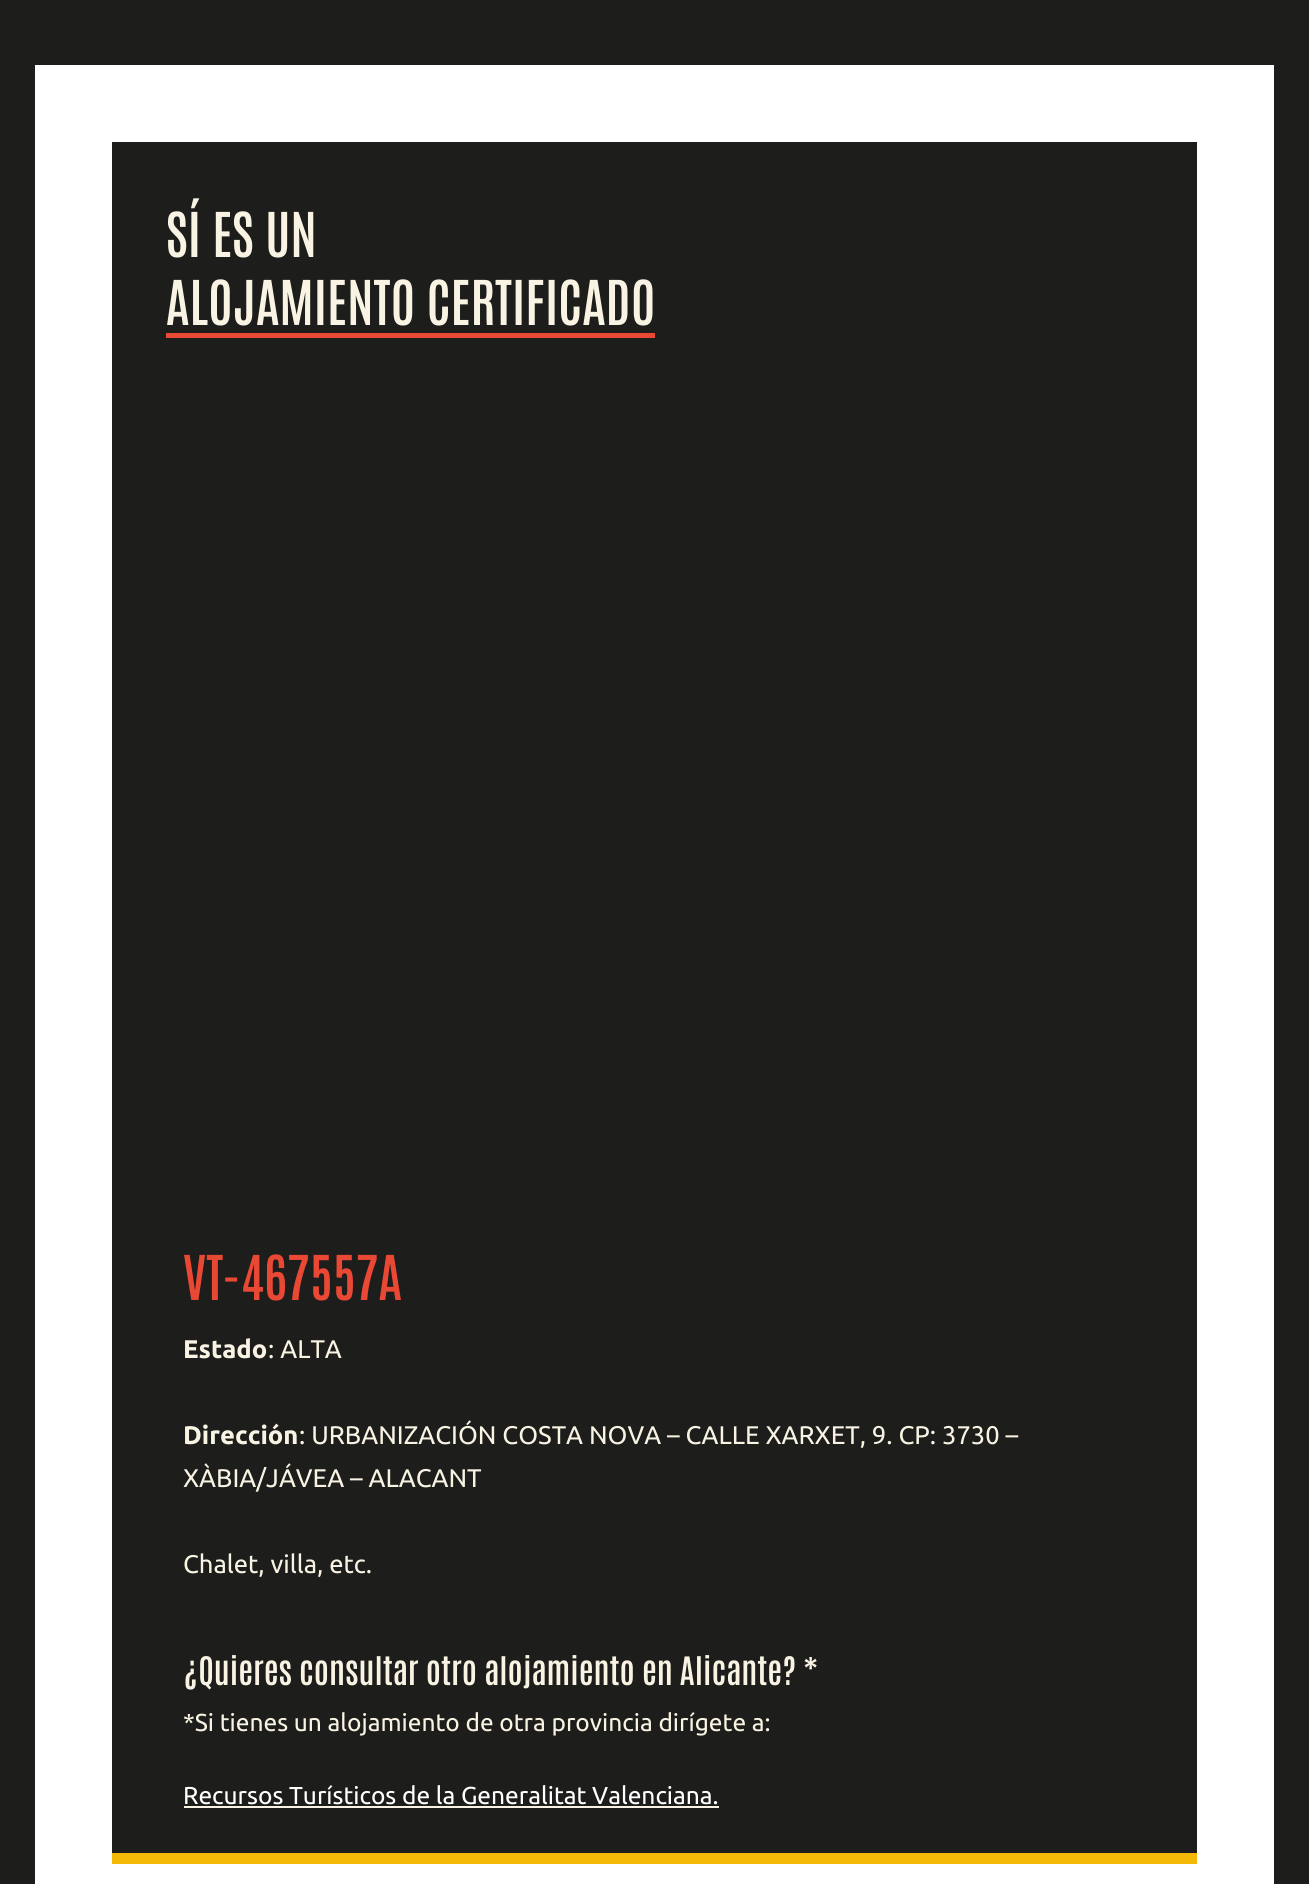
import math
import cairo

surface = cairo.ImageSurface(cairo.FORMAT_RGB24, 1309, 1884)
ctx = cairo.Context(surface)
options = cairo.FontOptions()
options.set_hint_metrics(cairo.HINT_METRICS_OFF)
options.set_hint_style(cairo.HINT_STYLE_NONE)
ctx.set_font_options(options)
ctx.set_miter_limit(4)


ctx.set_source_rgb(0.114, 0.114, 0.106)
ctx.paint()
ctx.set_source_rgb(1, 1, 1)
ctx.rectangle(35, 65, 1239, 1819)
ctx.fill()
ctx.set_source_rgb(0.114, 0.114, 0.106)
ctx.rectangle(112, 142, 1085, 1711)
ctx.fill()
ctx.set_source_rgb(0.953, 0.725, 0.027)
ctx.rectangle(112, 1853, 1085, 11)
ctx.fill()
ctx.select_font_face("Antonio SemiBold")
ctx.set_font_size(52.5)
ctx.set_source_rgb(0.973, 0.953, 0.89)
ctx.move_to(166, 257)
ctx.show_text("SÍ ES UN")
ctx.move_to(166, 325)
ctx.show_text("ALOJAMIENTO CERTIFICADO")
ctx.set_source_rgb(0.914, 0.282, 0.204)
ctx.rectangle(166, 333, 489, 5)
ctx.fill()
ctx.move_to(183, 1300)
ctx.show_text("VT-467557A")
ctx.select_font_face("Ubuntu", cairo.FONT_SLANT_NORMAL, cairo.FONT_WEIGHT_BOLD)
ctx.set_font_size(25.55)
ctx.set_source_rgb(0.973, 0.953, 0.89)
ctx.move_to(183, 1358)
ctx.show_text("Estado")
ctx.select_font_face("Ubuntu")
ctx.move_to(268, 1358)
ctx.show_text(": ALTA")
ctx.select_font_face("Ubuntu", cairo.FONT_SLANT_NORMAL, cairo.FONT_WEIGHT_BOLD)
ctx.move_to(183, 1444)
ctx.show_text("Dirección")
ctx.select_font_face("Ubuntu")
ctx.move_to(299, 1444)
ctx.show_text(": URBANIZACIÓN COSTA NOVA – CALLE XARXET, 9. CP: 3730 –")
ctx.move_to(183, 1487)
ctx.show_text("XÀBIA/JÁVEA – ALACANT")
ctx.move_to(183, 1573)
ctx.show_text("Chalet, villa, etc.")
ctx.select_font_face("Antonio SemiBold")
ctx.set_font_size(33.25)
ctx.move_to(183, 1685)
ctx.show_text("¿Quieres consultar otro alojamiento en Alicante? *")
ctx.select_font_face("Ubuntu")
ctx.set_font_size(24.5)
ctx.move_to(183, 1731)
ctx.show_text("*Si tienes un alojamiento de otra provincia dirígete a:")
ctx.set_source_rgb(1, 1, 1)
ctx.move_to(183, 1804)
ctx.show_text("Recursos Turísticos de la Generalitat Valenciana.")
ctx.set_source_rgb(0.973, 0.953, 0.89)
ctx.rectangle(184, 1806, 535, 2)
ctx.fill()
surface.write_to_png("page.png")
